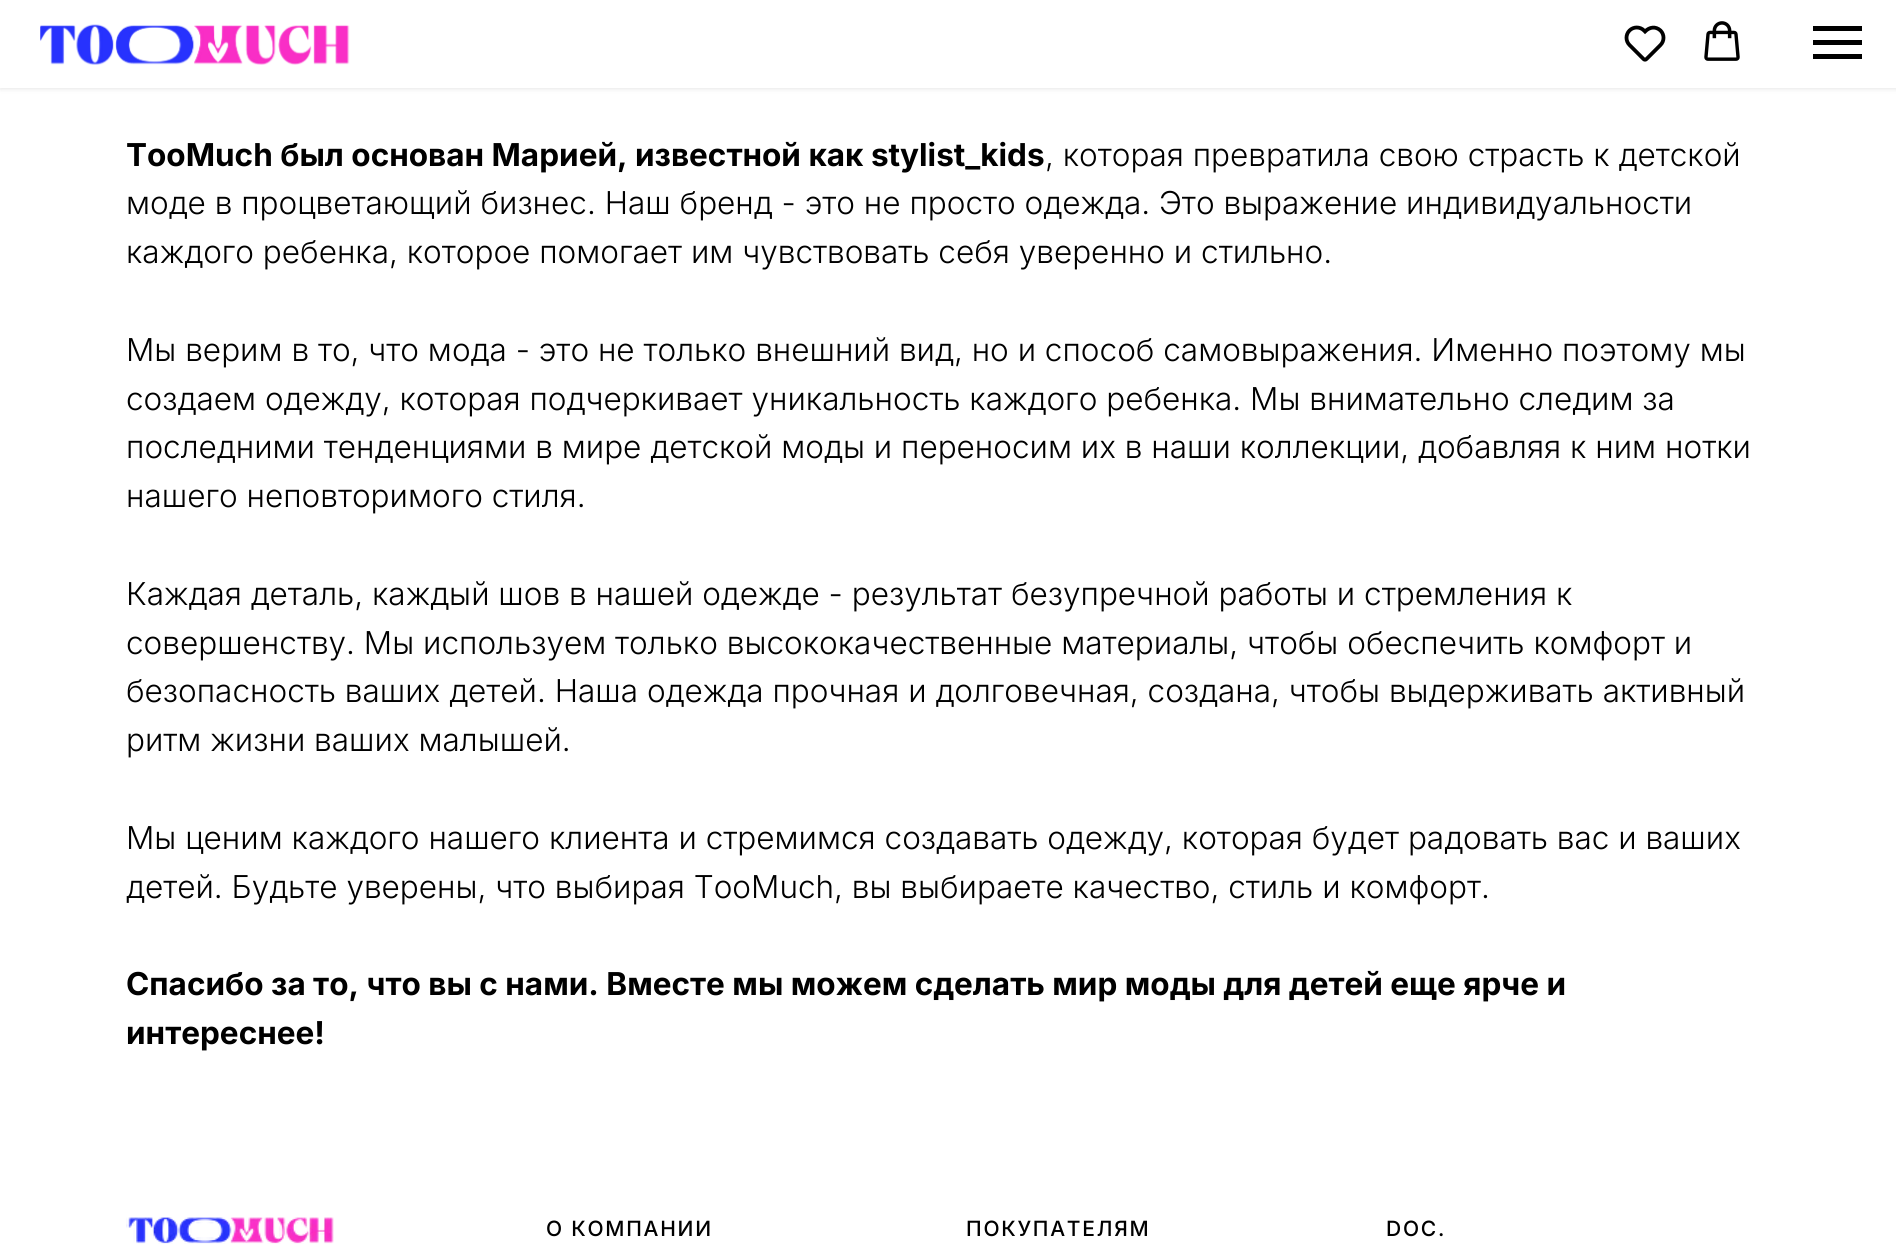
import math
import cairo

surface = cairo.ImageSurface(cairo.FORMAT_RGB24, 1896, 1251)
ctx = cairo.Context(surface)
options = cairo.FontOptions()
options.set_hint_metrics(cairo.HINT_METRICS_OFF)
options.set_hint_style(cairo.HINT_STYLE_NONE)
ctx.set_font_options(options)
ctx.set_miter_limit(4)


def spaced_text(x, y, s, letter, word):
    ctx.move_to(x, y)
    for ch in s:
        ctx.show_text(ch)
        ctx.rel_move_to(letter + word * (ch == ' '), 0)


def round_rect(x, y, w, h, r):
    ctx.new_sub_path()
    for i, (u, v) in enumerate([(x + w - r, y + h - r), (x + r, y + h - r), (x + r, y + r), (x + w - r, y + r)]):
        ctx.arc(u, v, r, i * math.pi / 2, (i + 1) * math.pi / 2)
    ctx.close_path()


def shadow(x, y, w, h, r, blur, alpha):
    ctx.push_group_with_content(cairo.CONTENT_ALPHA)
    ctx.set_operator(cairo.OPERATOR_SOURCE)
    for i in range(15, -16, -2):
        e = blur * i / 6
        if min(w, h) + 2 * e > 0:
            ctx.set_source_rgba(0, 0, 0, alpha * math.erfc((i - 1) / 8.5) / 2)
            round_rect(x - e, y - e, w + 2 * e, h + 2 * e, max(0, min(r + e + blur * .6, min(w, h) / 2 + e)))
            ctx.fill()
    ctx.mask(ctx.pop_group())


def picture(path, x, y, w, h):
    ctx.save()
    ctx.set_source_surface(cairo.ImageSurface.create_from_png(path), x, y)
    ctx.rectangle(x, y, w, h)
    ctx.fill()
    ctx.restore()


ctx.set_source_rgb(1, 1, 1)
ctx.paint()
ctx.set_source_rgb(0, 0, 0)
shadow(0, 2, 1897, 87, 0, 2.5, 0.1)
ctx.set_source_rgb(1, 1, 1)
ctx.rectangle(0, 0, 1896, 88)
ctx.fill()
picture("img1.png", 40, 24, 310, 41)
ctx.new_path()
ctx.move_to(1660.5, 30.5)
ctx.curve_to(1664.5, 34.5, 1664.5, 41, 1660.5, 45)
ctx.line_to(1646.5, 59)
ctx.curve_to(1645.5, 60, 1644.5, 60, 1643.5, 59)
ctx.line_to(1629.5, 45)
ctx.curve_to(1625.5, 41, 1625.5, 34.5, 1629.5, 30.5)
ctx.curve_to(1633.5, 26.5, 1640, 26.5, 1644, 30.5)
ctx.line_to(1645, 31.5)
ctx.curve_to(1649.5, 27, 1655.5, 26, 1660.5, 30.5)
ctx.close_path()
ctx.set_source_rgb(0, 0, 0)
ctx.set_line_width(3.8)
ctx.set_line_cap(cairo.LINE_CAP_ROUND)
ctx.stroke()
picture("img2.png", 1704, 21, 36, 40)
ctx.rectangle(1813, 26, 49, 5)
ctx.fill()
ctx.rectangle(1813, 40, 49, 5)
ctx.fill()
ctx.rectangle(1813, 54, 49, 5)
ctx.fill()
ctx.select_font_face("Inter", cairo.FONT_SLANT_NORMAL, cairo.FONT_WEIGHT_BOLD)
ctx.set_font_size(31.5)
ctx.move_to(126, 166)
ctx.show_text("TooMuch был основан Марией, известной как stylist_kids")
ctx.select_font_face("Inter Light")
ctx.move_to(1045, 166)
ctx.show_text(", которая превратила свою страсть к детской")
ctx.move_to(126, 214)
ctx.show_text("моде в процветающий бизнес. Наш бренд - это не просто одежда. Это выражение индивидуальности")
ctx.move_to(126, 263)
ctx.show_text("каждого ребенка, которое помогает им чувствовать себя уверенно и стильно.")
ctx.move_to(126, 361)
ctx.show_text("Мы верим в то, что мода - это не только внешний вид, но и способ самовыражения. Именно поэтому мы")
ctx.move_to(126, 410)
ctx.show_text("создаем одежду, которая подчеркивает уникальность каждого ребенка. Мы внимательно следим за")
ctx.move_to(126, 458)
ctx.show_text("последними тенденциями в мире детской моды и переносим их в наши коллекции, добавляя к ним нотки")
ctx.move_to(126, 507)
ctx.show_text("нашего неповторимого стиля.")
ctx.move_to(126, 605)
ctx.show_text("Каждая деталь, каждый шов в нашей одежде - результат безупречной работы и стремления к")
ctx.move_to(126, 654)
ctx.show_text("совершенству. Мы используем только высококачественные материалы, чтобы обеспечить комфорт и")
ctx.move_to(126, 702)
ctx.show_text("безопасность ваших детей. Наша одежда прочная и долговечная, создана, чтобы выдерживать активный")
ctx.move_to(126, 751)
ctx.show_text("ритм жизни ваших малышей.")
ctx.move_to(126, 849)
ctx.show_text("Мы ценим каждого нашего клиента и стремимся создавать одежду, которая будет радовать вас и ваших")
ctx.move_to(126, 898)
ctx.show_text("детей. Будьте уверены, что выбирая TooMuch, вы выбираете качество, стиль и комфорт.")
ctx.select_font_face("Inter", cairo.FONT_SLANT_NORMAL, cairo.FONT_WEIGHT_BOLD)
ctx.move_to(126, 995)
ctx.show_text("Спасибо за то, что вы с нами. Вместе мы можем сделать мир моды для детей еще ярче и")
ctx.move_to(126, 1044)
ctx.show_text("интереснее!")
picture("img3.png", 126, 1217, 208, 27)
ctx.select_font_face("Inter Medium")
ctx.set_font_size(21)
spaced_text(546, 1236, "О КОМПАНИИ", 1.75, 0)
spaced_text(966, 1236, "ПОКУПАТЕЛЯМ", 1.75, 0)
spaced_text(1386, 1236, "DOC.", 1.75, 0)
surface.write_to_png("page.png")
